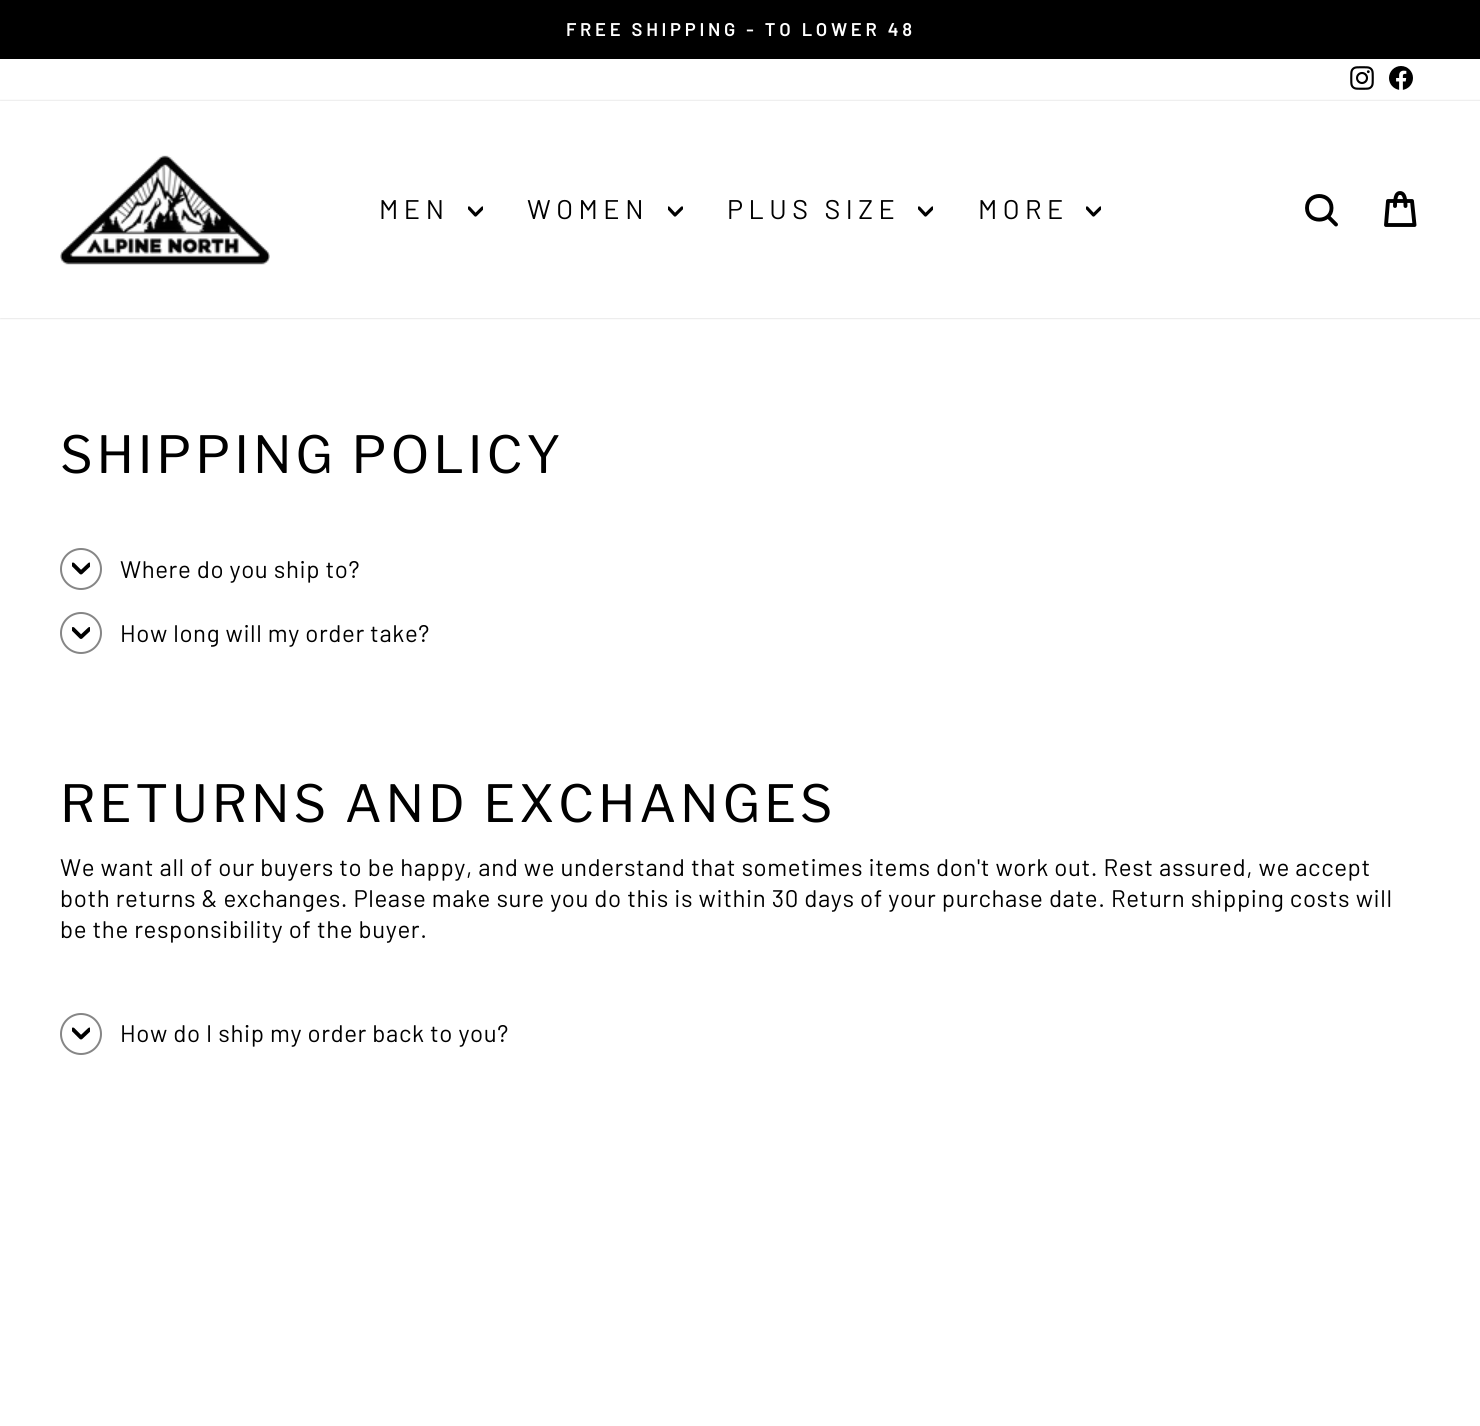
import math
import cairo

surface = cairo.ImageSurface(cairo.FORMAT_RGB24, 1480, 1426)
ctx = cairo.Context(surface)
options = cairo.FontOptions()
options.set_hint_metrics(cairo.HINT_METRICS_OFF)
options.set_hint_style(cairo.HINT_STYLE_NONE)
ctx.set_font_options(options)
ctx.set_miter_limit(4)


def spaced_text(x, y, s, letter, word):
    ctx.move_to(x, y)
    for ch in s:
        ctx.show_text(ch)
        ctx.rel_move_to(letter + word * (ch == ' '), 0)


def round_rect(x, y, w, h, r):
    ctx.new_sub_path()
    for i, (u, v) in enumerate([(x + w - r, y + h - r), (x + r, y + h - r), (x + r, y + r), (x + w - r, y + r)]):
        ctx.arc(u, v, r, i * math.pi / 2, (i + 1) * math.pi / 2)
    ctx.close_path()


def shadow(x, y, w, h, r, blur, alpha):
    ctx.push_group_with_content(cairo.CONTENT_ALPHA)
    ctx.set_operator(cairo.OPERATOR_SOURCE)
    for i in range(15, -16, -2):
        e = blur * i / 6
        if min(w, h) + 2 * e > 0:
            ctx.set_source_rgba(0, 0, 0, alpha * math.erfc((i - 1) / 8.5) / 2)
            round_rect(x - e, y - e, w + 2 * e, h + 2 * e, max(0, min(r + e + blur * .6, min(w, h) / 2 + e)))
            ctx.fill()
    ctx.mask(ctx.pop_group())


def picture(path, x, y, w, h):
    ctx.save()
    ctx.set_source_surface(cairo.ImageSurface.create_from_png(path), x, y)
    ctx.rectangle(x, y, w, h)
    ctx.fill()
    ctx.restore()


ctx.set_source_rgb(1, 1, 1)
ctx.paint()
ctx.set_source_rgb(0, 0, 0)
ctx.rectangle(0, 0, 1480, 59)
ctx.fill()
ctx.select_font_face("Barlow SemiBold")
ctx.set_font_size(18.4)
ctx.set_source_rgb(1, 1, 1)
spaced_text(566, 36, "FREE SHIPPING - TO LOWER 48", 3.7, 0)
picture("img1.png", 1350, 66, 24, 24)
picture("img2.png", 1389, 66, 24, 24)
ctx.save()
ctx.set_fill_rule(cairo.FILL_RULE_EVEN_ODD)
ctx.new_path()
ctx.move_to(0, 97)
ctx.line_to(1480, 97)
ctx.line_to(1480, 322)
ctx.line_to(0, 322)
ctx.close_path()
ctx.move_to(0, 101)
ctx.line_to(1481, 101)
ctx.line_to(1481, 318)
ctx.line_to(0, 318)
ctx.close_path()
ctx.clip()
ctx.set_source_rgb(0, 0, 0)
shadow(0, 101, 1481, 217, 0, 1, 0.2)
ctx.restore()
picture("img3.png", 60, 155, 210, 110)
ctx.select_font_face("Barlow")
ctx.set_font_size(27)
ctx.set_source_rgb(0, 0, 0)
spaced_text(379, 219, "MEN", 5.5, 0)
ctx.save()
ctx.rectangle(468, 204, 15, 15)
ctx.clip()
ctx.new_path()
ctx.move_to(469, 208)
ctx.line_to(475.5, 215)
ctx.line_to(482.5, 208)
ctx.set_line_width(3.2)
ctx.set_line_cap(cairo.LINE_CAP_ROUND)
ctx.set_line_join(cairo.LINE_JOIN_ROUND)
ctx.stroke()
ctx.restore()
spaced_text(527, 219, "WOMEN", 5.5, 0)
ctx.save()
ctx.rectangle(668, 204, 15, 15)
ctx.clip()
ctx.new_path()
ctx.move_to(668.5, 208)
ctx.line_to(675, 215)
ctx.line_to(682, 208)
ctx.set_line_width(3.2)
ctx.set_line_cap(cairo.LINE_CAP_ROUND)
ctx.set_line_join(cairo.LINE_JOIN_ROUND)
ctx.stroke()
ctx.restore()
spaced_text(727, 219, "PLUS SIZE", 5.5, 0)
ctx.save()
ctx.rectangle(918, 204, 15, 15)
ctx.clip()
ctx.new_path()
ctx.move_to(919, 208)
ctx.line_to(925.5, 215)
ctx.line_to(932.5, 208)
ctx.set_line_width(3.2)
ctx.set_line_cap(cairo.LINE_CAP_ROUND)
ctx.set_line_join(cairo.LINE_JOIN_ROUND)
ctx.stroke()
ctx.restore()
spaced_text(978, 219, "MORE", 5.5, 0)
ctx.save()
ctx.rectangle(1086, 204, 15, 15)
ctx.clip()
ctx.new_path()
ctx.move_to(1087, 208)
ctx.line_to(1093.5, 215)
ctx.line_to(1100.5, 208)
ctx.set_line_width(3.2)
ctx.set_line_cap(cairo.LINE_CAP_ROUND)
ctx.set_line_join(cairo.LINE_JOIN_ROUND)
ctx.stroke()
ctx.restore()
ctx.new_path()
ctx.move_to(1331.5, 208)
ctx.curve_to(1331.5, 223.5, 1307, 223.5, 1307, 208)
ctx.curve_to(1307, 192, 1331.5, 192, 1331.5, 208)
ctx.close_path()
ctx.move_to(1336, 224.5)
ctx.line_to(1328, 216.5)
ctx.set_line_width(3.9)
ctx.set_line_cap(cairo.LINE_CAP_ROUND)
ctx.set_line_join(cairo.LINE_JOIN_ROUND)
ctx.stroke()
ctx.new_path()
ctx.move_to(1395, 206)
ctx.curve_to(1395, 195.5, 1397, 193, 1400, 193)
ctx.curve_to(1403, 193, 1405.5, 195.5, 1405.5, 206)
ctx.move_to(1388, 201)
ctx.line_to(1412, 201)
ctx.line_to(1414.5, 225)
ctx.line_to(1386, 225)
ctx.close_path()
ctx.stroke()
ctx.select_font_face("Libre Franklin")
ctx.set_font_size(51)
spaced_text(60, 473, "SHIPPING POLICY", 3.8, 0)
ctx.new_path()
ctx.arc(81, 569, 20, 0, 2 * math.pi)
ctx.set_source_rgb(0.525, 0.525, 0.525)
ctx.set_line_width(2)
ctx.set_line_cap(cairo.LINE_CAP_BUTT)
ctx.set_line_join(cairo.LINE_JOIN_MITER)
ctx.stroke()
ctx.save()
ctx.rectangle(72, 560, 18, 18)
ctx.clip()
ctx.new_path()
ctx.move_to(73, 564.5)
ctx.line_to(81, 572.5)
ctx.line_to(89.5, 564.5)
ctx.set_source_rgb(0, 0, 0)
ctx.set_line_width(3.9)
ctx.set_line_cap(cairo.LINE_CAP_ROUND)
ctx.set_line_join(cairo.LINE_JOIN_ROUND)
ctx.stroke()
ctx.restore()
ctx.select_font_face("Barlow")
ctx.set_font_size(24)
ctx.set_source_rgb(0, 0, 0)
spaced_text(120, 578, "Where do you ship to?", 0.6, 0)
ctx.new_path()
ctx.arc(81, 633, 20, 0, 2 * math.pi)
ctx.set_source_rgb(0.525, 0.525, 0.525)
ctx.stroke()
ctx.save()
ctx.rectangle(72, 624, 18, 18)
ctx.clip()
ctx.new_path()
ctx.move_to(73, 629)
ctx.line_to(81, 637)
ctx.line_to(89.5, 629)
ctx.set_source_rgb(0, 0, 0)
ctx.set_line_width(3.9)
ctx.set_line_cap(cairo.LINE_CAP_ROUND)
ctx.set_line_join(cairo.LINE_JOIN_ROUND)
ctx.stroke()
ctx.restore()
ctx.set_source_rgb(0, 0, 0)
spaced_text(120, 642, "How long will my order take?", 0.6, 0)
ctx.select_font_face("Libre Franklin")
ctx.set_font_size(51)
spaced_text(60, 822, "RETURNS AND EXCHANGES", 3.8, 0)
ctx.select_font_face("Barlow")
ctx.set_font_size(24)
spaced_text(60, 876, "We want all of our buyers to be happy, and we understand that sometimes items don't work out. Rest assured, we accept", 0.6, 0)
spaced_text(60, 907, "both returns & exchanges. Please make sure you do this is within 30 days of your purchase date. Return shipping costs will", 0.6, 0)
spaced_text(60, 938, "be the responsibility of the buyer.", 0.6, 0)
ctx.new_path()
ctx.arc(81, 1034, 20, 0, 2 * math.pi)
ctx.set_source_rgb(0.525, 0.525, 0.525)
ctx.stroke()
ctx.save()
ctx.rectangle(72, 1025, 18, 18)
ctx.clip()
ctx.new_path()
ctx.move_to(73, 1029.5)
ctx.line_to(81, 1037.5)
ctx.line_to(89.5, 1029.5)
ctx.set_source_rgb(0, 0, 0)
ctx.set_line_width(3.9)
ctx.set_line_cap(cairo.LINE_CAP_ROUND)
ctx.set_line_join(cairo.LINE_JOIN_ROUND)
ctx.stroke()
ctx.restore()
ctx.set_source_rgb(0, 0, 0)
spaced_text(120, 1042, "How do I ship my order back to you?", 0.6, 0)
surface.write_to_png("page.png")
